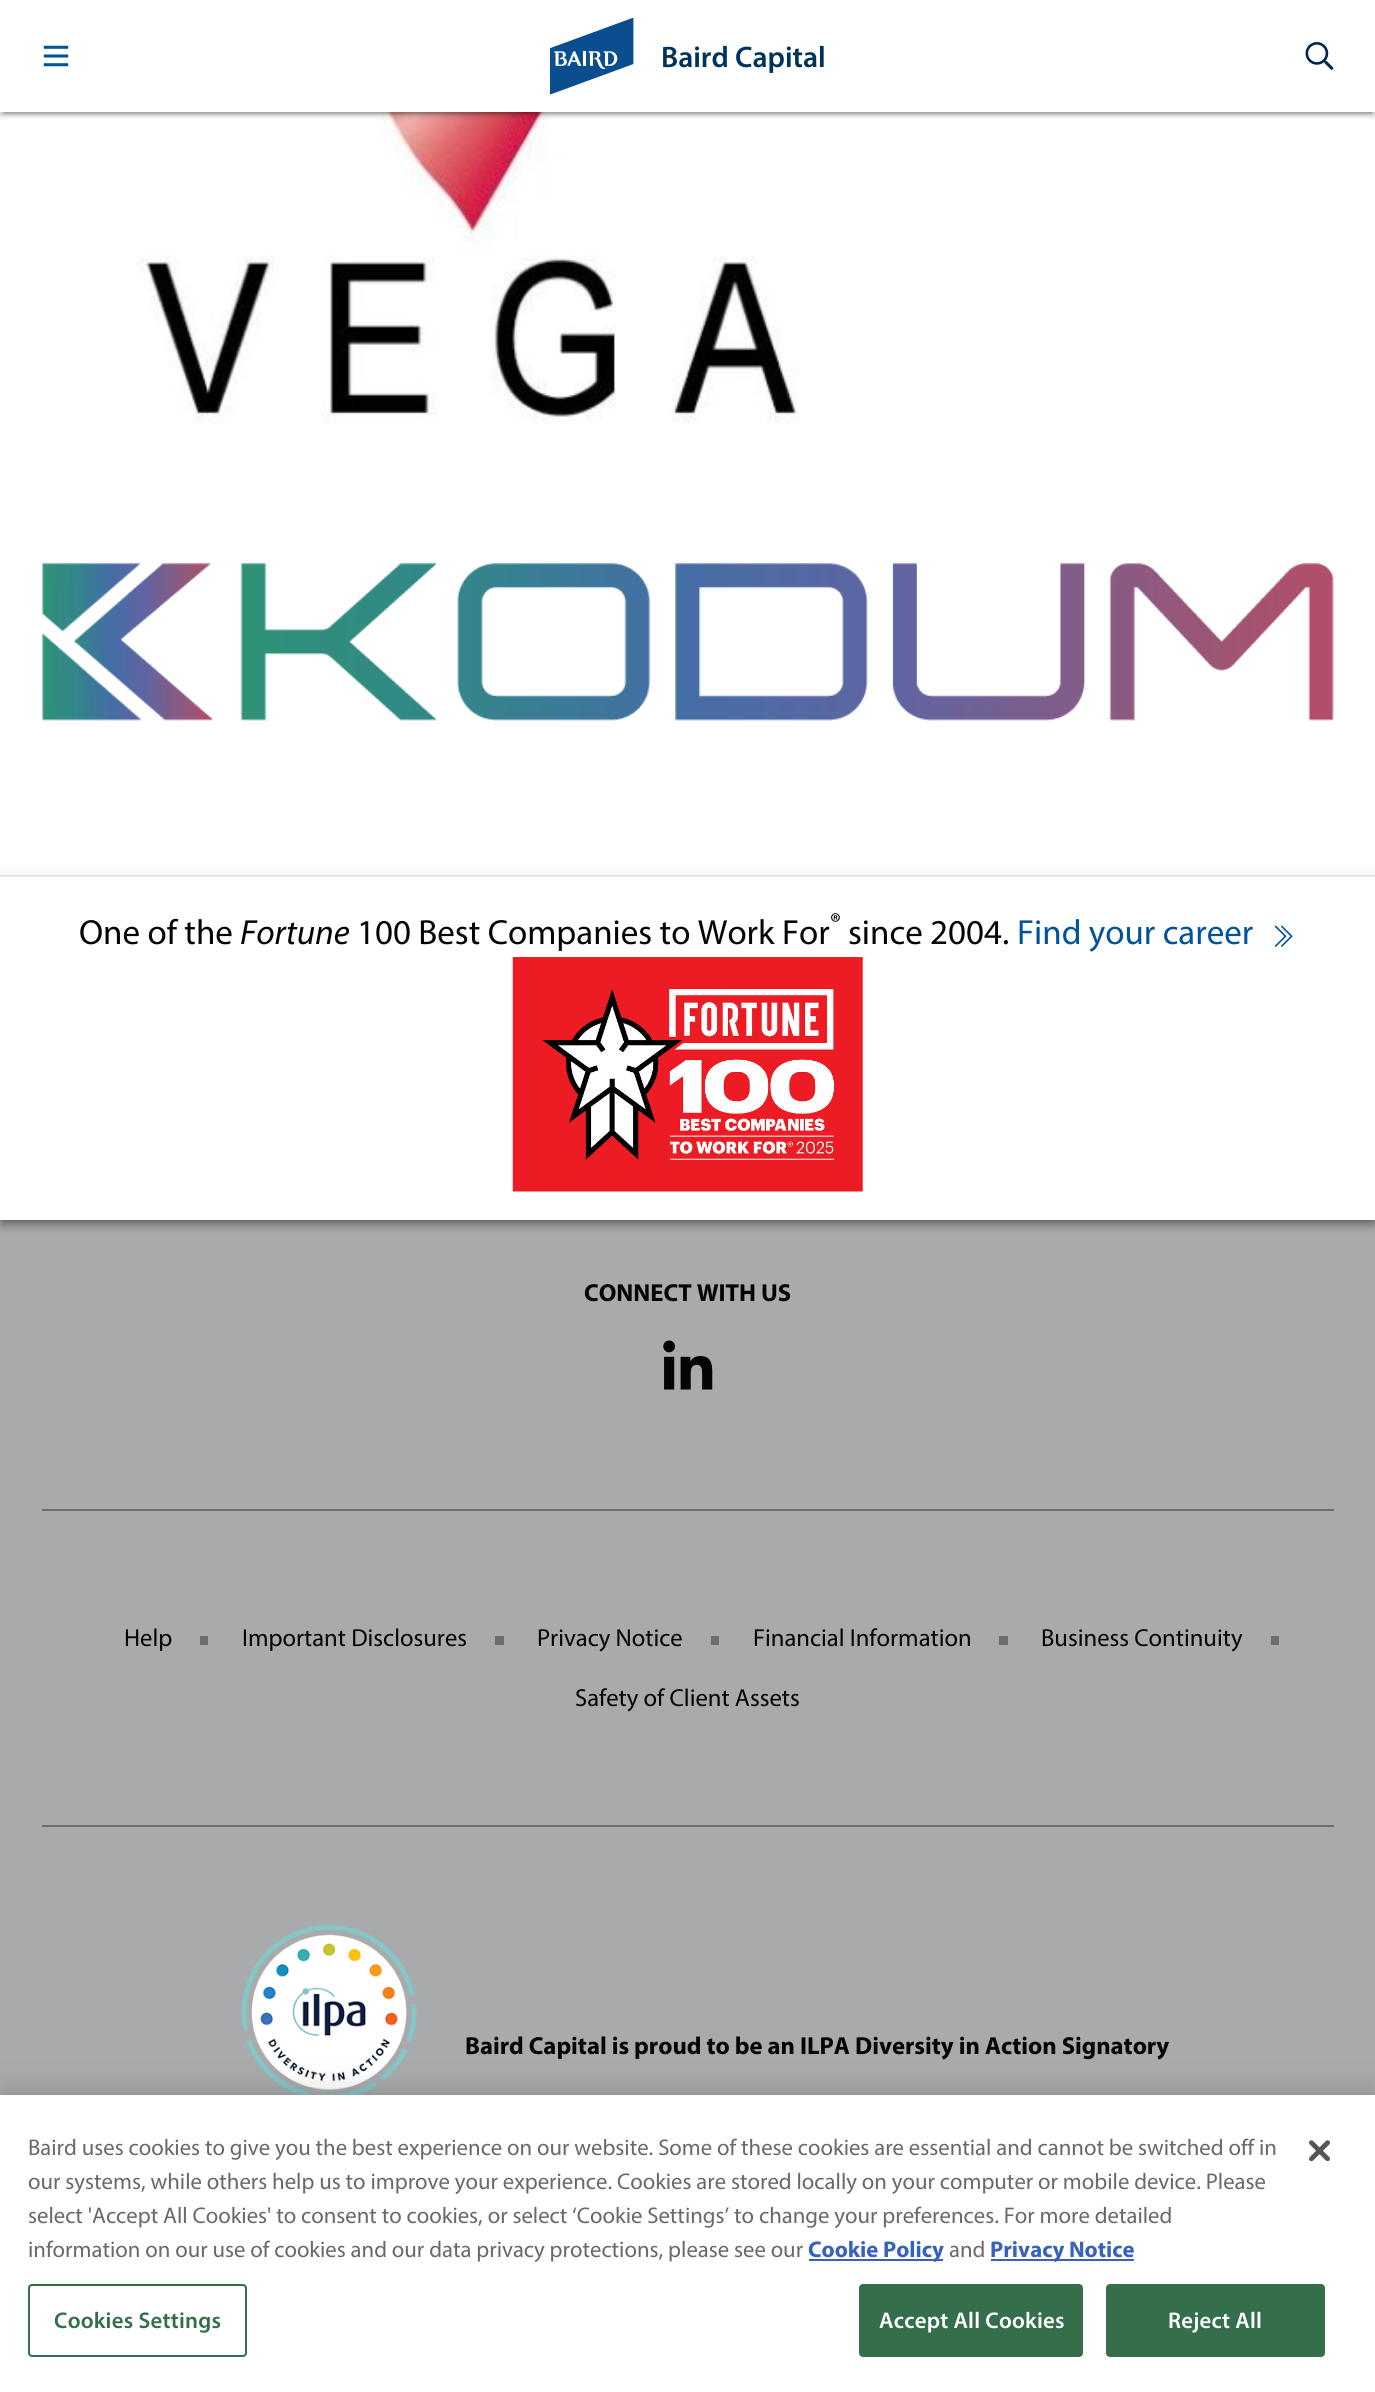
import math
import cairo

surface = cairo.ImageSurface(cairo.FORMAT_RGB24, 1375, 2392)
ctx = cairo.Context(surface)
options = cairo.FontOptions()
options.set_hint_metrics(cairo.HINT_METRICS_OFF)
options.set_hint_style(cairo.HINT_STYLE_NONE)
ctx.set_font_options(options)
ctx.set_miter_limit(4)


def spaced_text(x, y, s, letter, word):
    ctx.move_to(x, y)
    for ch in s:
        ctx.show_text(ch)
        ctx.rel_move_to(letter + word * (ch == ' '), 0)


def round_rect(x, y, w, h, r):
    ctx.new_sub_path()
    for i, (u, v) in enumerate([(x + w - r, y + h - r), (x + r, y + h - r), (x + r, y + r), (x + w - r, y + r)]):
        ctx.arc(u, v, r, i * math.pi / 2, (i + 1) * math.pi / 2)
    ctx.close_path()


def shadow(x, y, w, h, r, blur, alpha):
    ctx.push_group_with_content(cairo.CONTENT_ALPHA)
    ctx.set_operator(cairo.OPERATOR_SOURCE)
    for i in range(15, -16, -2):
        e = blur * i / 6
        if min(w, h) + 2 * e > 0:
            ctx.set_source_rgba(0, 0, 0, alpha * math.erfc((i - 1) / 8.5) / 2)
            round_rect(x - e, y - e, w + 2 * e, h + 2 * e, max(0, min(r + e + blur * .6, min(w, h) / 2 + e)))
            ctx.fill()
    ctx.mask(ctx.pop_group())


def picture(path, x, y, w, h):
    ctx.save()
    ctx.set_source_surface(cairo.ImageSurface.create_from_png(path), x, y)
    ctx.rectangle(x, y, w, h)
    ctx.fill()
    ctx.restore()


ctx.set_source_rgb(1, 1, 1)
ctx.paint()
picture("img4.png", 137, 112, 661, 311)
ctx.set_source_rgb(0, 0, 0)
shadow(4, 9, 1368, 105, 0, 1, 0.2)
shadow(0, 2, 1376, 112, 0, 4.5, 0.12)
shadow(0, 4, 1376, 112, 0, 2, 0.14)
ctx.set_source_rgb(1, 1, 1)
ctx.rectangle(0, 0, 1375, 112)
ctx.fill()
picture("img1.png", 43, 45, 26, 22)
picture("img2.png", 550, 18, 84, 77)
ctx.select_font_face("Myriad SemiBold")
ctx.set_font_size(29.75)
ctx.set_source_rgb(0, 0.196, 0.369)
ctx.move_to(661, 67)
ctx.show_text("Baird Capital")
picture("img3.png", 1305, 42, 29, 28)
picture("img5.png", 42, 563, 1292, 158)
ctx.set_source_rgb(0.663, 0.667, 0.671)
ctx.rectangle(0, 1220, 1375, 875)
ctx.fill()
ctx.set_source_rgb(0.953, 0.953, 0.953)
ctx.rectangle(0, 875, 1375, 2)
ctx.fill()
ctx.set_source_rgb(0, 0, 0)
shadow(2, 882, 1372, 340, 0, 3.5, 0.3)
shadow(0, 879, 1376, 343, 0, 9, 0.12)
shadow(0, 884, 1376, 343, 0, 4.5, 0.14)
ctx.set_source_rgb(1, 1, 1)
ctx.rectangle(0, 877, 1375, 343)
ctx.fill()
ctx.select_font_face("Myriad")
ctx.set_font_size(35)
ctx.set_source_rgb(0.02, 0.02, 0.02)
ctx.move_to(79, 944)
ctx.show_text("One of the")
ctx.select_font_face("Myriad", cairo.FONT_SLANT_ITALIC)
ctx.move_to(240, 944)
ctx.show_text("Fortune")
ctx.select_font_face("Myriad")
ctx.move_to(357, 944)
ctx.show_text("100 Best Companies to Work For")
ctx.set_font_size(26)
ctx.move_to(830, 931)
ctx.show_text("®")
ctx.set_font_size(35)
ctx.move_to(848, 944)
ctx.show_text("since 2004.")
ctx.set_source_rgb(0, 0.325, 0.608)
ctx.move_to(1017, 944)
ctx.show_text("Find your career")
picture("img6.png", 1274, 925, 19, 22)
picture("img7.png", 512, 957, 351, 235)
ctx.select_font_face("Myriad", cairo.FONT_SLANT_NORMAL, cairo.FONT_WEIGHT_BOLD)
ctx.set_font_size(24.65)
ctx.set_source_rgb(0.02, 0.02, 0.02)
ctx.move_to(584, 1301)
ctx.show_text("CONNECT WITH US")
picture("img8.png", 663, 1340, 50, 50)
ctx.set_source_rgb(0.424, 0.427, 0.431)
ctx.rectangle(42, 1509, 1292, 2)
ctx.fill()
ctx.select_font_face("Myriad")
ctx.set_source_rgb(0.02, 0.02, 0.02)
ctx.move_to(124, 1646)
ctx.show_text("Help")
ctx.set_source_rgb(0.424, 0.427, 0.431)
ctx.rectangle(200, 1636, 8, 9)
ctx.fill()
ctx.set_source_rgb(0.02, 0.02, 0.02)
ctx.move_to(242, 1646)
ctx.show_text("Important Disclosures")
ctx.set_source_rgb(0.424, 0.427, 0.431)
ctx.rectangle(495, 1636, 9, 9)
ctx.fill()
ctx.set_source_rgb(0.02, 0.02, 0.02)
ctx.move_to(537, 1646)
ctx.show_text("Privacy Notice")
ctx.set_source_rgb(0.424, 0.427, 0.431)
ctx.rectangle(711, 1636, 8, 9)
ctx.fill()
ctx.set_source_rgb(0.02, 0.02, 0.02)
ctx.move_to(753, 1646)
ctx.show_text("Financial Information")
ctx.set_source_rgb(0.424, 0.427, 0.431)
ctx.rectangle(999, 1636, 9, 9)
ctx.fill()
ctx.set_source_rgb(0.02, 0.02, 0.02)
ctx.move_to(1041, 1646)
ctx.show_text("Business Continuity")
ctx.set_source_rgb(0.424, 0.427, 0.431)
ctx.rectangle(1271, 1636, 8, 9)
ctx.fill()
ctx.set_source_rgb(0.02, 0.02, 0.02)
ctx.move_to(575, 1706)
ctx.show_text("Safety of Client Assets")
ctx.set_source_rgb(0.424, 0.427, 0.431)
ctx.rectangle(42, 1825, 1292, 2)
ctx.fill()
picture("img9.png", 241, 1924, 176, 171)
ctx.select_font_face("Myriad", cairo.FONT_SLANT_NORMAL, cairo.FONT_WEIGHT_BOLD)
ctx.set_source_rgb(0.02, 0.02, 0.02)
ctx.move_to(465, 2054)
ctx.show_text("Baird Capital is proud to be an ILPA Diversity in Action Signatory")
ctx.set_source_rgb(0, 0, 0)
shadow(0, 2095, 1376, 297, 0, 16, 0.2)
ctx.set_source_rgb(1, 1, 1)
ctx.rectangle(0, 2095, 1375, 297)
ctx.fill()
ctx.select_font_face("Myriad")
ctx.set_font_size(22.75)
ctx.set_source_rgb(0.412, 0.412, 0.412)
ctx.move_to(28, 2155)
ctx.show_text("Baird uses cookies to give you the best experience on our website. Some of these cookies are essential and cannot be switched off in")
ctx.move_to(28, 2189)
ctx.show_text("our systems, while others help us to improve your experience. Cookies are stored locally on your computer or mobile device. Please")
ctx.move_to(28, 2223)
ctx.show_text("select 'Accept All Cookies' to consent to cookies, or select ‘Cookie Settings’ to change your preferences. For more detailed")
ctx.move_to(28, 2257)
ctx.show_text("information on our use of cookies and our data privacy protections, please see our")
ctx.set_source_rgb(0.22, 0.376, 0.745)
ctx.rectangle(809, 2259, 134, 2)
ctx.fill()
ctx.select_font_face("Myriad", cairo.FONT_SLANT_NORMAL, cairo.FONT_WEIGHT_BOLD)
ctx.move_to(808, 2257)
ctx.show_text("Cookie Policy")
ctx.select_font_face("Myriad")
ctx.set_source_rgb(0.412, 0.412, 0.412)
ctx.move_to(949, 2257)
ctx.show_text("and")
ctx.set_source_rgb(0.22, 0.376, 0.745)
ctx.rectangle(991, 2259, 143, 2)
ctx.fill()
ctx.select_font_face("Myriad", cairo.FONT_SLANT_NORMAL, cairo.FONT_WEIGHT_BOLD)
ctx.move_to(990, 2257)
ctx.show_text("Privacy Notice")
round_rect(29, 2285, 217, 71, 3)
ctx.set_source_rgb(0.204, 0.431, 0.29)
ctx.stroke()
ctx.select_font_face("Myriad SemiBold")
spaced_text(54, 2328, "Cookies Settings", 0.25, 0)
round_rect(860, 2285, 222, 71, 3)
ctx.fill_preserve()
ctx.stroke()
ctx.set_source_rgb(1, 1, 1)
spaced_text(879, 2328, "Accept All Cookies", 0.25, 0)
ctx.set_source_rgb(0.204, 0.431, 0.29)
round_rect(1107, 2285, 217, 71, 3)
ctx.fill_preserve()
ctx.stroke()
ctx.set_source_rgb(1, 1, 1)
spaced_text(1168, 2328, "Reject All", 0.25, 0)
picture("img10.png", 1309, 2140, 21, 21)
surface.write_to_png("page.png")
